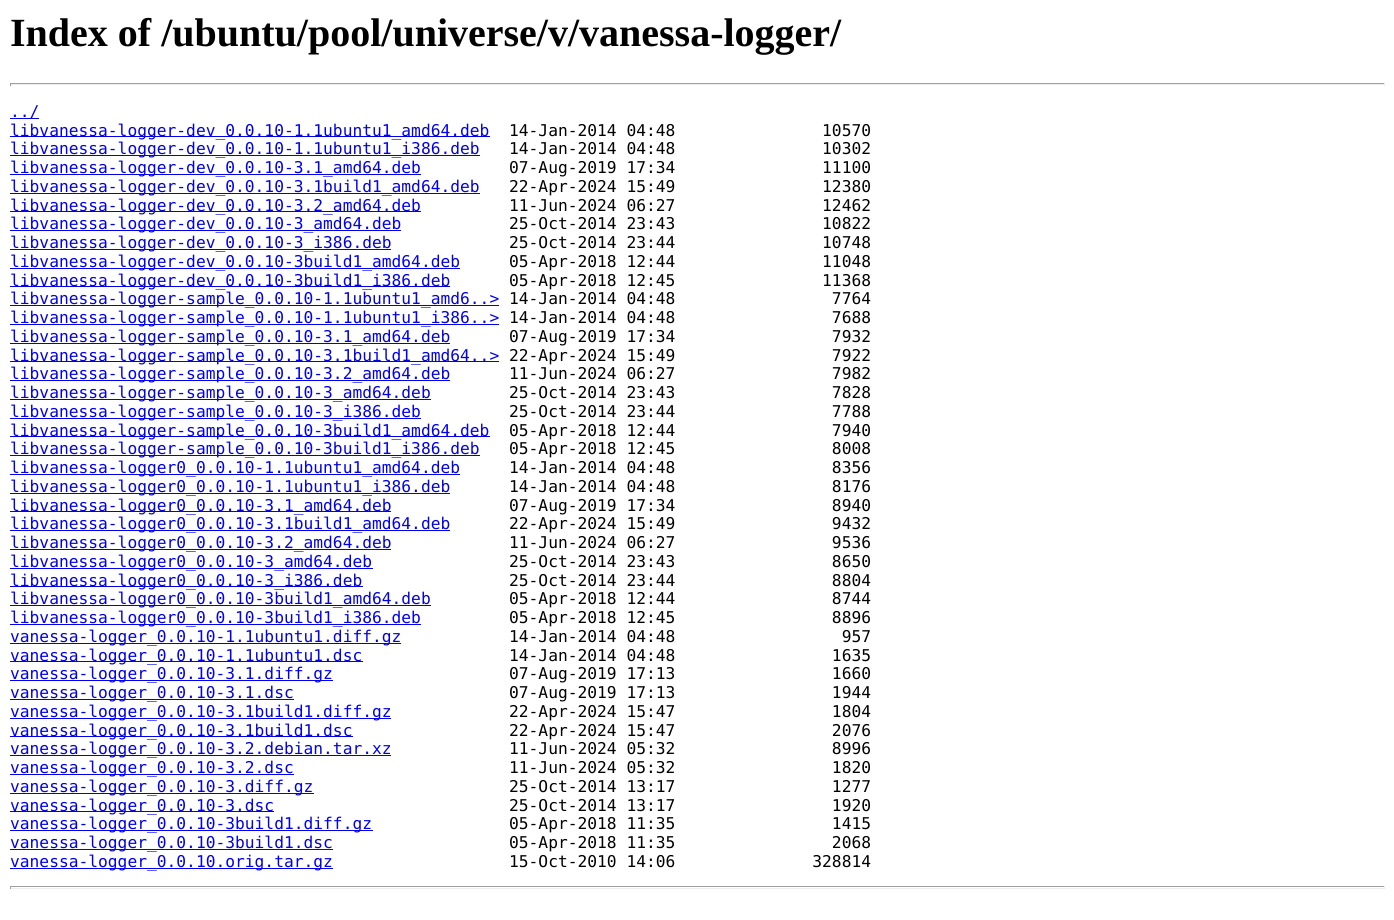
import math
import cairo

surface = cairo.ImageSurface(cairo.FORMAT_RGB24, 1394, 920)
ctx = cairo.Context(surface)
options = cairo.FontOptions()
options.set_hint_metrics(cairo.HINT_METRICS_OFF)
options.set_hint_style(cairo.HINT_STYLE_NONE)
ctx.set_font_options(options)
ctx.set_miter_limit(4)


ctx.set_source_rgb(1, 1, 1)
ctx.paint()
ctx.select_font_face("Liberation Serif", cairo.FONT_SLANT_NORMAL, cairo.FONT_WEIGHT_BOLD)
ctx.set_font_size(40)
ctx.set_source_rgb(0, 0, 0)
ctx.move_to(10, 46)
ctx.show_text("Index of /ubuntu/pool/universe/v/vanessa-logger/")
ctx.set_source_rgb(0.624, 0.624, 0.624)
ctx.rectangle(10, 83, 1375, 1)
ctx.fill()
ctx.set_source_rgb(0.933, 0.933, 0.933)
ctx.rectangle(1384, 83, 1, 3)
ctx.fill()
ctx.rectangle(10, 84, 1375, 1)
ctx.fill()
ctx.set_source_rgb(0.624, 0.624, 0.624)
ctx.rectangle(10, 83, 1, 3)
ctx.fill()
ctx.set_source_rgb(0, 0, 0.933)
ctx.rectangle(10, 118, 29, 1)
ctx.fill()
ctx.select_font_face("DejaVu Sans Mono")
ctx.set_font_size(16.25)
ctx.move_to(10, 117)
ctx.show_text("../")
ctx.rectangle(10, 136, 480, 1)
ctx.fill()
ctx.move_to(10, 136)
ctx.show_text("libvanessa-logger-dev_0.0.10-1.1ubuntu1_amd64.deb")
ctx.set_source_rgb(0, 0, 0)
ctx.move_to(509, 136)
ctx.show_text("14-Jan-2014 04:48               10570")
ctx.set_source_rgb(0, 0, 0.933)
ctx.rectangle(10, 155, 470, 1)
ctx.fill()
ctx.move_to(10, 154)
ctx.show_text("libvanessa-logger-dev_0.0.10-1.1ubuntu1_i386.deb")
ctx.set_source_rgb(0, 0, 0)
ctx.move_to(509, 154)
ctx.show_text("14-Jan-2014 04:48               10302")
ctx.set_source_rgb(0, 0, 0.933)
ctx.rectangle(10, 174, 411, 1)
ctx.fill()
ctx.move_to(10, 173)
ctx.show_text("libvanessa-logger-dev_0.0.10-3.1_amd64.deb")
ctx.set_source_rgb(0, 0, 0)
ctx.move_to(509, 173)
ctx.show_text("07-Aug-2019 17:34               11100")
ctx.set_source_rgb(0, 0, 0.933)
ctx.rectangle(10, 193, 470, 1)
ctx.fill()
ctx.move_to(10, 192)
ctx.show_text("libvanessa-logger-dev_0.0.10-3.1build1_amd64.deb")
ctx.set_source_rgb(0, 0, 0)
ctx.move_to(509, 192)
ctx.show_text("22-Apr-2024 15:49               12380")
ctx.set_source_rgb(0, 0, 0.933)
ctx.rectangle(10, 211, 411, 1)
ctx.fill()
ctx.move_to(10, 211)
ctx.show_text("libvanessa-logger-dev_0.0.10-3.2_amd64.deb")
ctx.set_source_rgb(0, 0, 0)
ctx.move_to(509, 211)
ctx.show_text("11-Jun-2024 06:27               12462")
ctx.set_source_rgb(0, 0, 0.933)
ctx.rectangle(10, 230, 391, 1)
ctx.fill()
ctx.move_to(10, 229)
ctx.show_text("libvanessa-logger-dev_0.0.10-3_amd64.deb")
ctx.set_source_rgb(0, 0, 0)
ctx.move_to(509, 229)
ctx.show_text("25-Oct-2014 23:43               10822")
ctx.set_source_rgb(0, 0, 0.933)
ctx.rectangle(10, 249, 381, 1)
ctx.fill()
ctx.move_to(10, 248)
ctx.show_text("libvanessa-logger-dev_0.0.10-3_i386.deb")
ctx.set_source_rgb(0, 0, 0)
ctx.move_to(509, 248)
ctx.show_text("25-Oct-2014 23:44               10748")
ctx.set_source_rgb(0, 0, 0.933)
ctx.rectangle(10, 268, 450, 1)
ctx.fill()
ctx.move_to(10, 267)
ctx.show_text("libvanessa-logger-dev_0.0.10-3build1_amd64.deb")
ctx.set_source_rgb(0, 0, 0)
ctx.move_to(509, 267)
ctx.show_text("05-Apr-2018 12:44               11048")
ctx.set_source_rgb(0, 0, 0.933)
ctx.rectangle(10, 286, 440, 1)
ctx.fill()
ctx.move_to(10, 286)
ctx.show_text("libvanessa-logger-dev_0.0.10-3build1_i386.deb")
ctx.set_source_rgb(0, 0, 0)
ctx.move_to(509, 286)
ctx.show_text("05-Apr-2018 12:45               11368")
ctx.set_source_rgb(0, 0, 0.933)
ctx.rectangle(10, 305, 489, 1)
ctx.fill()
ctx.move_to(10, 304)
ctx.show_text("libvanessa-logger-sample_0.0.10-1.1ubuntu1_amd6..>")
ctx.set_source_rgb(0, 0, 0)
ctx.move_to(509, 304)
ctx.show_text("14-Jan-2014 04:48                7764")
ctx.set_source_rgb(0, 0, 0.933)
ctx.rectangle(10, 324, 489, 1)
ctx.fill()
ctx.move_to(10, 323)
ctx.show_text("libvanessa-logger-sample_0.0.10-1.1ubuntu1_i386..>")
ctx.set_source_rgb(0, 0, 0)
ctx.move_to(509, 323)
ctx.show_text("14-Jan-2014 04:48                7688")
ctx.set_source_rgb(0, 0, 0.933)
ctx.rectangle(10, 343, 440, 1)
ctx.fill()
ctx.move_to(10, 342)
ctx.show_text("libvanessa-logger-sample_0.0.10-3.1_amd64.deb")
ctx.set_source_rgb(0, 0, 0)
ctx.move_to(509, 342)
ctx.show_text("07-Aug-2019 17:34                7932")
ctx.set_source_rgb(0, 0, 0.933)
ctx.rectangle(10, 361, 489, 1)
ctx.fill()
ctx.move_to(10, 361)
ctx.show_text("libvanessa-logger-sample_0.0.10-3.1build1_amd64..>")
ctx.set_source_rgb(0, 0, 0)
ctx.move_to(509, 361)
ctx.show_text("22-Apr-2024 15:49                7922")
ctx.set_source_rgb(0, 0, 0.933)
ctx.rectangle(10, 380, 440, 1)
ctx.fill()
ctx.move_to(10, 379)
ctx.show_text("libvanessa-logger-sample_0.0.10-3.2_amd64.deb")
ctx.set_source_rgb(0, 0, 0)
ctx.move_to(509, 379)
ctx.show_text("11-Jun-2024 06:27                7982")
ctx.set_source_rgb(0, 0, 0.933)
ctx.rectangle(10, 399, 421, 1)
ctx.fill()
ctx.move_to(10, 398)
ctx.show_text("libvanessa-logger-sample_0.0.10-3_amd64.deb")
ctx.set_source_rgb(0, 0, 0)
ctx.move_to(509, 398)
ctx.show_text("25-Oct-2014 23:43                7828")
ctx.set_source_rgb(0, 0, 0.933)
ctx.rectangle(10, 418, 411, 1)
ctx.fill()
ctx.move_to(10, 417)
ctx.show_text("libvanessa-logger-sample_0.0.10-3_i386.deb")
ctx.set_source_rgb(0, 0, 0)
ctx.move_to(509, 417)
ctx.show_text("25-Oct-2014 23:44                7788")
ctx.set_source_rgb(0, 0, 0.933)
ctx.rectangle(10, 436, 480, 1)
ctx.fill()
ctx.move_to(10, 436)
ctx.show_text("libvanessa-logger-sample_0.0.10-3build1_amd64.deb")
ctx.set_source_rgb(0, 0, 0)
ctx.move_to(509, 436)
ctx.show_text("05-Apr-2018 12:44                7940")
ctx.set_source_rgb(0, 0, 0.933)
ctx.rectangle(10, 455, 470, 1)
ctx.fill()
ctx.move_to(10, 454)
ctx.show_text("libvanessa-logger-sample_0.0.10-3build1_i386.deb")
ctx.set_source_rgb(0, 0, 0)
ctx.move_to(509, 454)
ctx.show_text("05-Apr-2018 12:45                8008")
ctx.set_source_rgb(0, 0, 0.933)
ctx.rectangle(10, 474, 450, 1)
ctx.fill()
ctx.move_to(10, 473)
ctx.show_text("libvanessa-logger0_0.0.10-1.1ubuntu1_amd64.deb")
ctx.set_source_rgb(0, 0, 0)
ctx.move_to(509, 473)
ctx.show_text("14-Jan-2014 04:48                8356")
ctx.set_source_rgb(0, 0, 0.933)
ctx.rectangle(10, 493, 440, 1)
ctx.fill()
ctx.move_to(10, 492)
ctx.show_text("libvanessa-logger0_0.0.10-1.1ubuntu1_i386.deb")
ctx.set_source_rgb(0, 0, 0)
ctx.move_to(509, 492)
ctx.show_text("14-Jan-2014 04:48                8176")
ctx.set_source_rgb(0, 0, 0.933)
ctx.rectangle(10, 511, 381, 1)
ctx.fill()
ctx.move_to(10, 511)
ctx.show_text("libvanessa-logger0_0.0.10-3.1_amd64.deb")
ctx.set_source_rgb(0, 0, 0)
ctx.move_to(509, 511)
ctx.show_text("07-Aug-2019 17:34                8940")
ctx.set_source_rgb(0, 0, 0.933)
ctx.rectangle(10, 530, 440, 1)
ctx.fill()
ctx.move_to(10, 529)
ctx.show_text("libvanessa-logger0_0.0.10-3.1build1_amd64.deb")
ctx.set_source_rgb(0, 0, 0)
ctx.move_to(509, 529)
ctx.show_text("22-Apr-2024 15:49                9432")
ctx.set_source_rgb(0, 0, 0.933)
ctx.rectangle(10, 549, 381, 1)
ctx.fill()
ctx.move_to(10, 548)
ctx.show_text("libvanessa-logger0_0.0.10-3.2_amd64.deb")
ctx.set_source_rgb(0, 0, 0)
ctx.move_to(509, 548)
ctx.show_text("11-Jun-2024 06:27                9536")
ctx.set_source_rgb(0, 0, 0.933)
ctx.rectangle(10, 568, 363, 1)
ctx.fill()
ctx.move_to(10, 567)
ctx.show_text("libvanessa-logger0_0.0.10-3_amd64.deb")
ctx.set_source_rgb(0, 0, 0)
ctx.move_to(509, 567)
ctx.show_text("25-Oct-2014 23:43                8650")
ctx.set_source_rgb(0, 0, 0.933)
ctx.rectangle(10, 586, 353, 1)
ctx.fill()
ctx.move_to(10, 586)
ctx.show_text("libvanessa-logger0_0.0.10-3_i386.deb")
ctx.set_source_rgb(0, 0, 0)
ctx.move_to(509, 586)
ctx.show_text("25-Oct-2014 23:44                8804")
ctx.set_source_rgb(0, 0, 0.933)
ctx.rectangle(10, 605, 421, 1)
ctx.fill()
ctx.move_to(10, 604)
ctx.show_text("libvanessa-logger0_0.0.10-3build1_amd64.deb")
ctx.set_source_rgb(0, 0, 0)
ctx.move_to(509, 604)
ctx.show_text("05-Apr-2018 12:44                8744")
ctx.set_source_rgb(0, 0, 0.933)
ctx.rectangle(10, 624, 411, 1)
ctx.fill()
ctx.move_to(10, 623)
ctx.show_text("libvanessa-logger0_0.0.10-3build1_i386.deb")
ctx.set_source_rgb(0, 0, 0)
ctx.move_to(509, 623)
ctx.show_text("05-Apr-2018 12:45                8896")
ctx.set_source_rgb(0, 0, 0.933)
ctx.rectangle(10, 643, 391, 1)
ctx.fill()
ctx.move_to(10, 642)
ctx.show_text("vanessa-logger_0.0.10-1.1ubuntu1.diff.gz")
ctx.set_source_rgb(0, 0, 0)
ctx.move_to(509, 642)
ctx.show_text("14-Jan-2014 04:48                 957")
ctx.set_source_rgb(0, 0, 0.933)
ctx.rectangle(10, 661, 353, 1)
ctx.fill()
ctx.move_to(10, 661)
ctx.show_text("vanessa-logger_0.0.10-1.1ubuntu1.dsc")
ctx.set_source_rgb(0, 0, 0)
ctx.move_to(509, 661)
ctx.show_text("14-Jan-2014 04:48                1635")
ctx.set_source_rgb(0, 0, 0.933)
ctx.rectangle(10, 680, 323, 1)
ctx.fill()
ctx.move_to(10, 679)
ctx.show_text("vanessa-logger_0.0.10-3.1.diff.gz")
ctx.set_source_rgb(0, 0, 0)
ctx.move_to(509, 679)
ctx.show_text("07-Aug-2019 17:13                1660")
ctx.set_source_rgb(0, 0, 0.933)
ctx.rectangle(10, 699, 284, 1)
ctx.fill()
ctx.move_to(10, 698)
ctx.show_text("vanessa-logger_0.0.10-3.1.dsc")
ctx.set_source_rgb(0, 0, 0)
ctx.move_to(509, 698)
ctx.show_text("07-Aug-2019 17:13                1944")
ctx.set_source_rgb(0, 0, 0.933)
ctx.rectangle(10, 718, 381, 1)
ctx.fill()
ctx.move_to(10, 717)
ctx.show_text("vanessa-logger_0.0.10-3.1build1.diff.gz")
ctx.set_source_rgb(0, 0, 0)
ctx.move_to(509, 717)
ctx.show_text("22-Apr-2024 15:47                1804")
ctx.set_source_rgb(0, 0, 0.933)
ctx.rectangle(10, 736, 343, 1)
ctx.fill()
ctx.move_to(10, 736)
ctx.show_text("vanessa-logger_0.0.10-3.1build1.dsc")
ctx.set_source_rgb(0, 0, 0)
ctx.move_to(509, 736)
ctx.show_text("22-Apr-2024 15:47                2076")
ctx.set_source_rgb(0, 0, 0.933)
ctx.rectangle(10, 755, 381, 1)
ctx.fill()
ctx.move_to(10, 754)
ctx.show_text("vanessa-logger_0.0.10-3.2.debian.tar.xz")
ctx.set_source_rgb(0, 0, 0)
ctx.move_to(509, 754)
ctx.show_text("11-Jun-2024 05:32                8996")
ctx.set_source_rgb(0, 0, 0.933)
ctx.rectangle(10, 774, 284, 1)
ctx.fill()
ctx.move_to(10, 773)
ctx.show_text("vanessa-logger_0.0.10-3.2.dsc")
ctx.set_source_rgb(0, 0, 0)
ctx.move_to(509, 773)
ctx.show_text("11-Jun-2024 05:32                1820")
ctx.set_source_rgb(0, 0, 0.933)
ctx.rectangle(10, 793, 304, 1)
ctx.fill()
ctx.move_to(10, 792)
ctx.show_text("vanessa-logger_0.0.10-3.diff.gz")
ctx.set_source_rgb(0, 0, 0)
ctx.move_to(509, 792)
ctx.show_text("25-Oct-2014 13:17                1277")
ctx.set_source_rgb(0, 0, 0.933)
ctx.rectangle(10, 811, 264, 1)
ctx.fill()
ctx.move_to(10, 811)
ctx.show_text("vanessa-logger_0.0.10-3.dsc")
ctx.set_source_rgb(0, 0, 0)
ctx.move_to(509, 811)
ctx.show_text("25-Oct-2014 13:17                1920")
ctx.set_source_rgb(0, 0, 0.933)
ctx.rectangle(10, 830, 363, 1)
ctx.fill()
ctx.move_to(10, 829)
ctx.show_text("vanessa-logger_0.0.10-3build1.diff.gz")
ctx.set_source_rgb(0, 0, 0)
ctx.move_to(509, 829)
ctx.show_text("05-Apr-2018 11:35                1415")
ctx.set_source_rgb(0, 0, 0.933)
ctx.rectangle(10, 849, 323, 1)
ctx.fill()
ctx.move_to(10, 848)
ctx.show_text("vanessa-logger_0.0.10-3build1.dsc")
ctx.set_source_rgb(0, 0, 0)
ctx.move_to(509, 848)
ctx.show_text("05-Apr-2018 11:35                2068")
ctx.set_source_rgb(0, 0, 0.933)
ctx.rectangle(10, 868, 323, 1)
ctx.fill()
ctx.move_to(10, 867)
ctx.show_text("vanessa-logger_0.0.10.orig.tar.gz")
ctx.set_source_rgb(0, 0, 0)
ctx.move_to(509, 867)
ctx.show_text("15-Oct-2010 14:06              328814")
ctx.set_source_rgb(0.624, 0.624, 0.624)
ctx.rectangle(10, 886, 1375, 1)
ctx.fill()
ctx.set_source_rgb(0.933, 0.933, 0.933)
ctx.rectangle(1384, 886, 1, 3)
ctx.fill()
ctx.rectangle(10, 888, 1375, 1)
ctx.fill()
ctx.set_source_rgb(0.624, 0.624, 0.624)
ctx.rectangle(10, 886, 1, 3)
ctx.fill()
surface.write_to_png("page.png")
